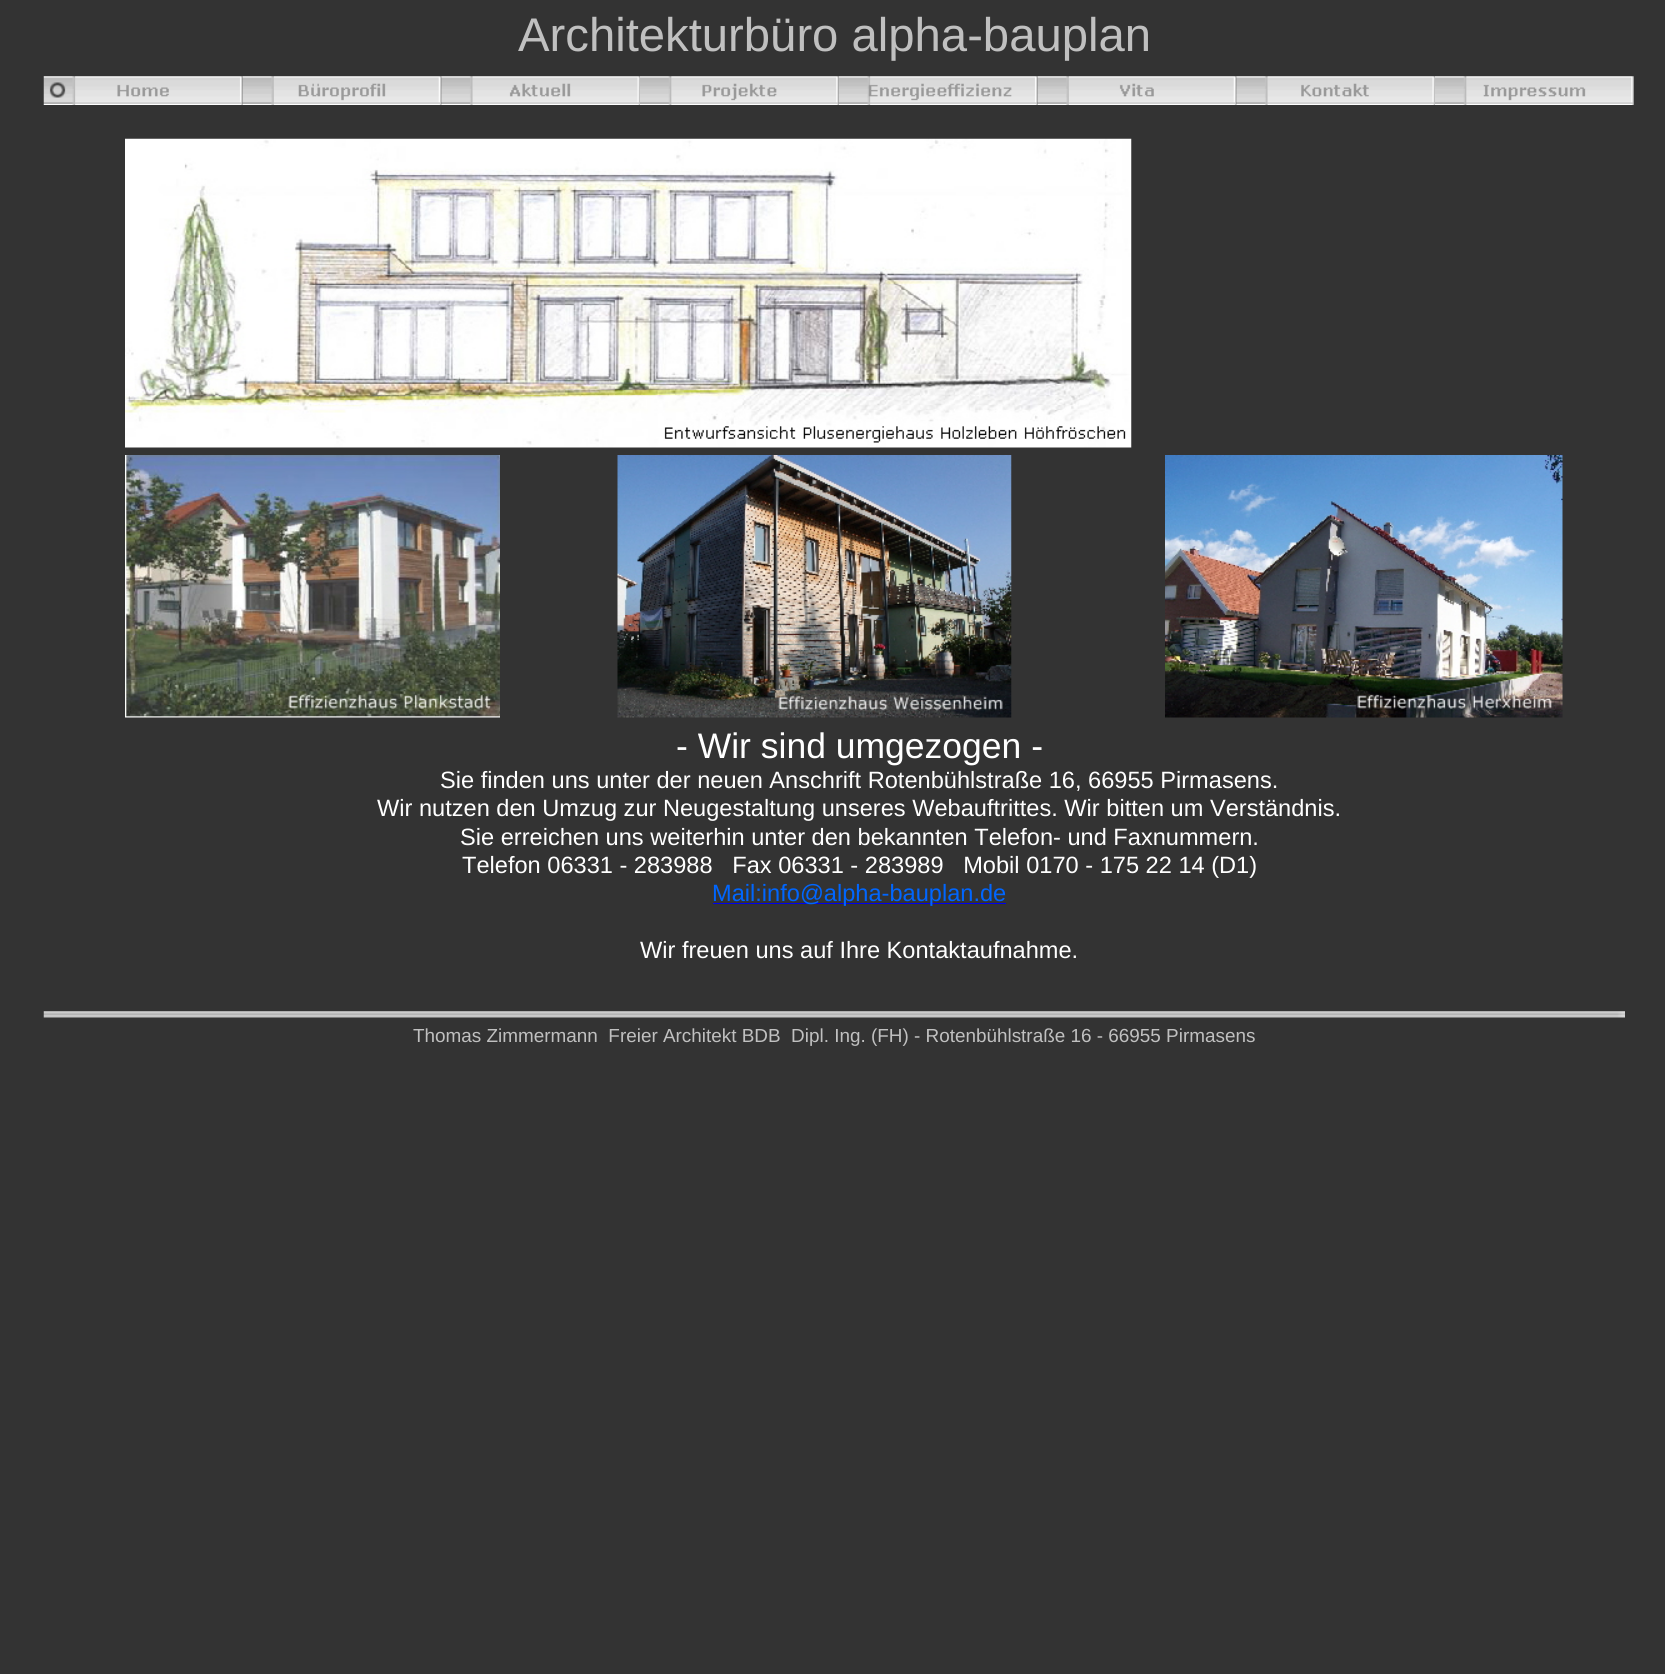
import math
import cairo

surface = cairo.ImageSurface(cairo.FORMAT_RGB24, 1665, 1674)
ctx = cairo.Context(surface)
options = cairo.FontOptions()
options.set_hint_metrics(cairo.HINT_METRICS_OFF)
options.set_hint_style(cairo.HINT_STYLE_NONE)
ctx.set_font_options(options)
ctx.set_miter_limit(4)


def picture(path, x, y, w, h):
    ctx.save()
    ctx.set_source_surface(cairo.ImageSurface.create_from_png(path), x, y)
    ctx.rectangle(x, y, w, h)
    ctx.fill()
    ctx.restore()


ctx.set_source_rgb(0.2, 0.2, 0.2)
ctx.paint()
ctx.select_font_face("Liberation Sans")
ctx.set_font_size(47.25)
ctx.set_source_rgb(0.753, 0.753, 0.753)
ctx.move_to(518, 51)
ctx.show_text("Architekturbüro alpha-bauplan")
picture("img1.png", 43, 76, 200, 29)
picture("img2.png", 242, 76, 200, 29)
picture("img3.png", 441, 76, 199, 29)
picture("img4.png", 640, 76, 199, 29)
picture("img5.png", 838, 76, 200, 29)
picture("img6.png", 1037, 76, 200, 29)
picture("img7.png", 1236, 76, 199, 29)
picture("img8.png", 1435, 76, 199, 29)
picture("img9.png", 125, 138, 1007, 310)
picture("img10.png", 125, 455, 375, 263)
picture("img11.png", 617, 455, 395, 263)
picture("img12.png", 1165, 455, 398, 263)
ctx.set_font_size(35.5)
ctx.set_source_rgb(1, 1, 1)
ctx.move_to(676, 758)
ctx.show_text("- Wir sind umgezogen -")
ctx.set_font_size(23.6)
ctx.move_to(440, 788)
ctx.show_text("Sie finden uns unter der neuen Anschrift Rotenbühlstraße 16, 66955 Pirmasens.")
ctx.move_to(377, 816)
ctx.show_text("Wir nutzen den Umzug zur Neugestaltung unseres Webauftrittes. Wir bitten um Verständnis.")
ctx.move_to(460, 845)
ctx.show_text("Sie erreichen uns weiterhin unter den bekannten Telefon- und Faxnummern.")
ctx.move_to(462, 873)
ctx.show_text("Telefon 06331 - 283988   Fax 06331 - 283989   Mobil 0170 - 175 22 14 (D1)")
ctx.set_source_rgb(0, 0, 0.933)
ctx.rectangle(713, 903, 293, 1)
ctx.fill()
ctx.set_source_rgb(0, 0.4, 1)
ctx.move_to(712, 901)
ctx.show_text("Mail:info@alpha-bauplan.de")
ctx.set_source_rgb(1, 1, 1)
ctx.move_to(640, 958)
ctx.show_text("Wir freuen uns auf Ihre Kontaktaufnahme.")
picture("img13.png", 43, 1011, 1582, 7)
ctx.set_font_size(18.9)
ctx.set_source_rgb(0.753, 0.753, 0.753)
ctx.move_to(413, 1042)
ctx.show_text("Thomas Zimmermann  Freier Architekt BDB  Dipl. Ing. (FH) - Rotenbühlstraße 16 - 66955 Pirmasens")
surface.write_to_png("page.png")
